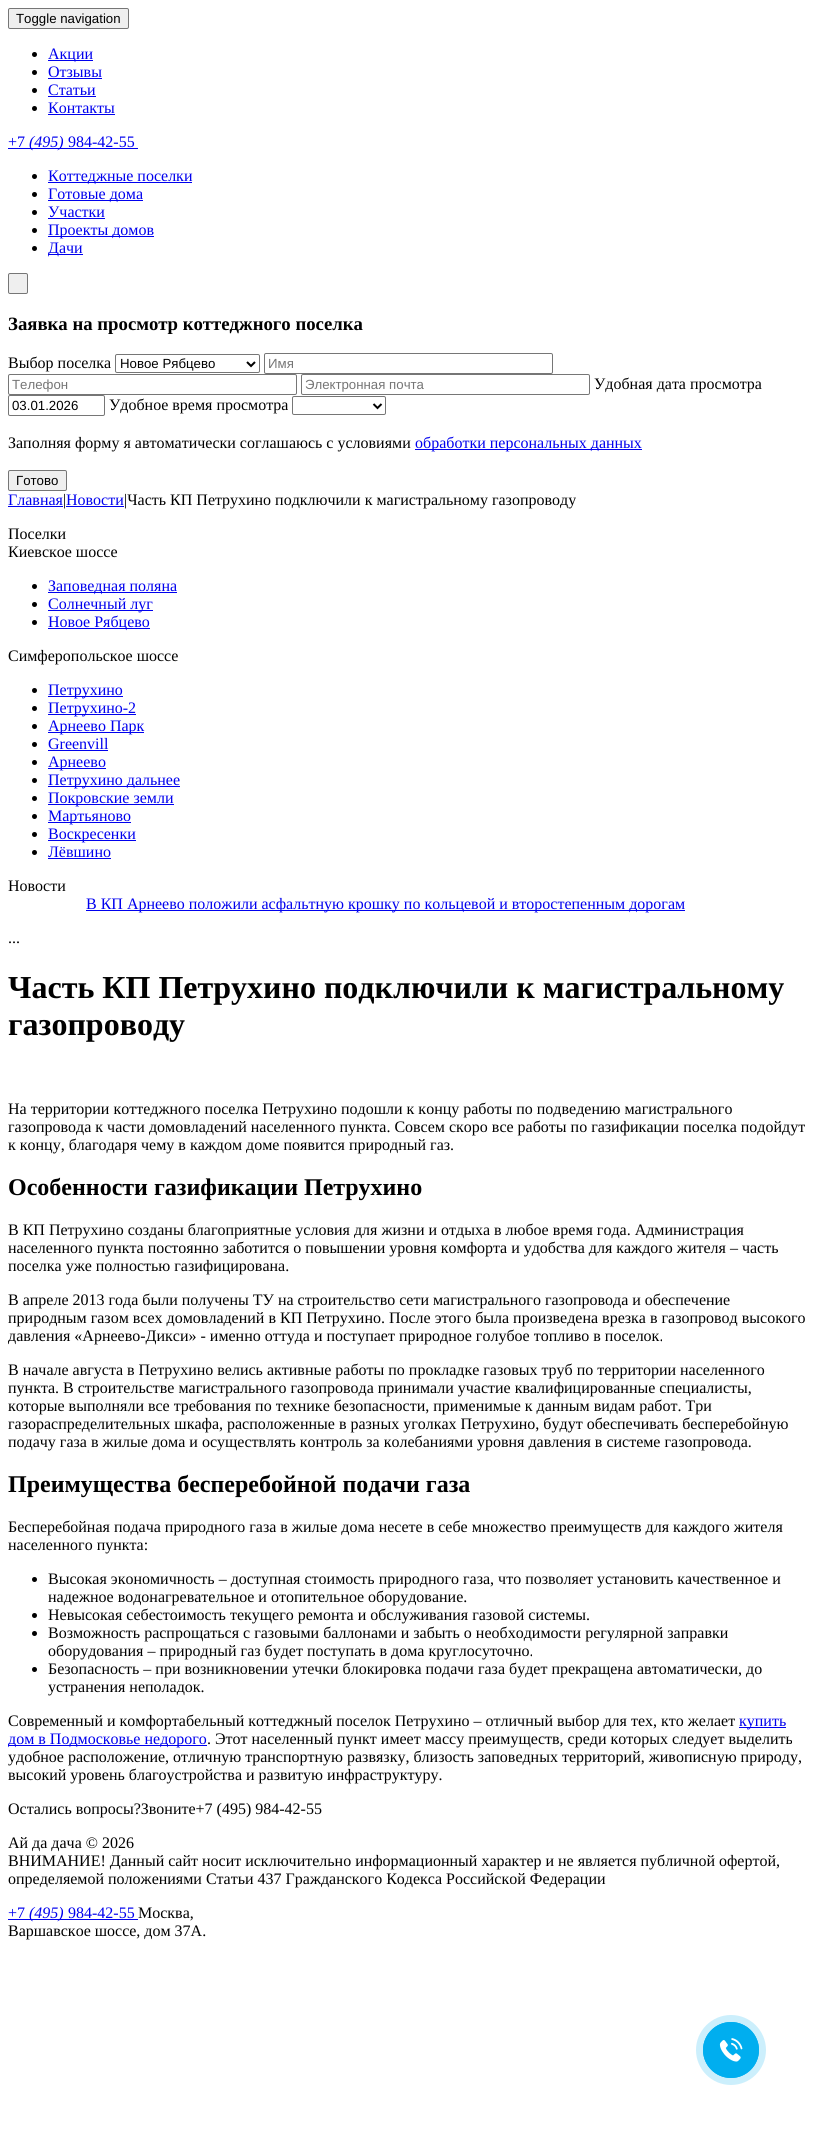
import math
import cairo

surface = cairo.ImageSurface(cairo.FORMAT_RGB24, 814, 2133)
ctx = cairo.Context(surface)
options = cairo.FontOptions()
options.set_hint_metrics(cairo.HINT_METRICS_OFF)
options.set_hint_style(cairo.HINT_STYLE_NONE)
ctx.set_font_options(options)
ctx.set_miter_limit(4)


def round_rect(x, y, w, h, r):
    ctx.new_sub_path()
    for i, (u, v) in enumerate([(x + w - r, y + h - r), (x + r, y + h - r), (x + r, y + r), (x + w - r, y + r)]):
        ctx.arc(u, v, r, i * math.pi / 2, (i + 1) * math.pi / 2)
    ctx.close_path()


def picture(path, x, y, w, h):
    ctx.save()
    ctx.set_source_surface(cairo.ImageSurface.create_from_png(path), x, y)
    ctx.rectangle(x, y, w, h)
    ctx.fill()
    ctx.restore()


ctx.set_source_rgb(1, 1, 1)
ctx.paint()
ctx.set_source_rgb(0.937, 0.937, 0.937)
round_rect(8.5, 8.5, 120, 20, 1.5)
ctx.fill_preserve()
ctx.set_source_rgb(0.463, 0.463, 0.463)
ctx.set_line_width(1)
ctx.stroke()
ctx.select_font_face("Liberation Sans")
ctx.set_font_size(13.25)
ctx.set_source_rgb(0, 0, 0)
ctx.move_to(16, 23)
ctx.show_text("Toggle navigation")
ctx.new_path()
ctx.arc(34.5, 54.5, 2.5, 0, 2 * math.pi)
ctx.fill()
ctx.set_source_rgb(0, 0, 0.933)
ctx.rectangle(48, 60, 45, 1)
ctx.fill()
ctx.select_font_face("Liberation Serif")
ctx.set_font_size(16)
ctx.move_to(48, 59)
ctx.show_text("Акции")
ctx.set_source_rgb(0, 0, 0)
ctx.new_path()
ctx.arc(34.5, 72.5, 2.5, 0, 2 * math.pi)
ctx.fill()
ctx.set_source_rgb(0, 0, 0.933)
ctx.move_to(48, 77)
ctx.show_text("Отзывы")
ctx.rectangle(48, 78, 54, 1)
ctx.fill()
ctx.set_source_rgb(0, 0, 0)
ctx.arc(34.5, 90.5, 2.5, 0, 2 * math.pi)
ctx.fill()
ctx.set_source_rgb(0, 0, 0.933)
ctx.move_to(48, 95)
ctx.show_text("Статьи")
ctx.rectangle(48, 96, 48, 1)
ctx.fill()
ctx.set_source_rgb(0, 0, 0)
ctx.arc(34.5, 108.5, 2.5, 0, 2 * math.pi)
ctx.fill()
ctx.set_source_rgb(0, 0, 0.933)
ctx.move_to(48, 113)
ctx.show_text("Контакты")
ctx.rectangle(48, 114, 67, 1)
ctx.fill()
ctx.move_to(8, 147)
ctx.show_text("+7")
ctx.rectangle(8, 148, 130, 1)
ctx.fill()
ctx.select_font_face("Liberation Serif", cairo.FONT_SLANT_ITALIC)
ctx.move_to(29, 147)
ctx.show_text("(495)")
ctx.select_font_face("Liberation Serif")
ctx.move_to(68, 147)
ctx.show_text("984-42-55")
ctx.set_source_rgb(0, 0, 0)
ctx.new_path()
ctx.arc(34.5, 176.5, 2.5, 0, 2 * math.pi)
ctx.fill()
ctx.set_source_rgb(0, 0, 0.933)
ctx.rectangle(48, 182, 144, 1)
ctx.fill()
ctx.move_to(48, 181)
ctx.show_text("Коттеджные поселки")
ctx.set_source_rgb(0, 0, 0)
ctx.new_path()
ctx.arc(34.5, 194.5, 2.5, 0, 2 * math.pi)
ctx.fill()
ctx.set_source_rgb(0, 0, 0.933)
ctx.rectangle(48, 200, 95, 1)
ctx.fill()
ctx.move_to(48, 199)
ctx.show_text("Готовые дома")
ctx.set_source_rgb(0, 0, 0)
ctx.new_path()
ctx.arc(34.5, 212.5, 2.5, 0, 2 * math.pi)
ctx.fill()
ctx.set_source_rgb(0, 0, 0.933)
ctx.move_to(48, 217)
ctx.show_text("Участки")
ctx.rectangle(48, 218, 57, 1)
ctx.fill()
ctx.set_source_rgb(0, 0, 0)
ctx.arc(34.5, 230.5, 2.5, 0, 2 * math.pi)
ctx.fill()
ctx.set_source_rgb(0, 0, 0.933)
ctx.rectangle(48, 236, 106, 1)
ctx.fill()
ctx.move_to(48, 235)
ctx.show_text("Проекты домов")
ctx.set_source_rgb(0, 0, 0)
ctx.new_path()
ctx.arc(34.5, 248.5, 2.5, 0, 2 * math.pi)
ctx.fill()
ctx.set_source_rgb(0, 0, 0.933)
ctx.rectangle(48, 254, 35, 1)
ctx.fill()
ctx.move_to(48, 253)
ctx.show_text("Дачи")
ctx.set_source_rgb(0.937, 0.937, 0.937)
round_rect(8.5, 273.5, 19, 20, 1.5)
ctx.fill_preserve()
ctx.set_source_rgb(0.463, 0.463, 0.463)
ctx.stroke()
ctx.select_font_face("Liberation Serif", cairo.FONT_SLANT_NORMAL, cairo.FONT_WEIGHT_BOLD)
ctx.set_font_size(18.75)
ctx.set_source_rgb(0, 0, 0)
ctx.move_to(8, 330)
ctx.show_text("Заявка на просмотр коттеджного поселка")
ctx.select_font_face("Liberation Serif")
ctx.set_font_size(16)
ctx.move_to(8, 368)
ctx.show_text("Выбор поселка")
round_rect(115.5, 354.5, 144, 18, 1.5)
ctx.set_source_rgb(0.463, 0.463, 0.463)
ctx.stroke()
ctx.new_path()
ctx.move_to(247, 362)
ctx.line_to(251, 366)
ctx.line_to(255, 362)
ctx.set_source_rgb(0, 0, 0)
ctx.set_line_width(2)
ctx.stroke()
ctx.select_font_face("Liberation Sans")
ctx.set_font_size(13.25)
ctx.move_to(120, 368)
ctx.show_text("Новое Рябцево")
round_rect(264.5, 353.5, 288, 20, 1.5)
ctx.set_source_rgb(0.463, 0.463, 0.463)
ctx.set_line_width(1)
ctx.stroke()
ctx.set_source_rgb(0.459, 0.459, 0.459)
ctx.move_to(268, 368)
ctx.show_text("Имя")
round_rect(8.5, 374.5, 288, 20, 1.5)
ctx.set_source_rgb(0.463, 0.463, 0.463)
ctx.stroke()
ctx.set_source_rgb(0.459, 0.459, 0.459)
ctx.move_to(12, 389)
ctx.show_text("Телефон")
round_rect(301.5, 374.5, 288, 20, 1.5)
ctx.set_source_rgb(0.463, 0.463, 0.463)
ctx.stroke()
ctx.set_source_rgb(0.459, 0.459, 0.459)
ctx.move_to(305, 389)
ctx.show_text("Электронная почта")
ctx.select_font_face("Liberation Serif")
ctx.set_font_size(16)
ctx.set_source_rgb(0, 0, 0)
ctx.move_to(594, 389)
ctx.show_text("Удобная дата просмотра")
round_rect(8.5, 395.5, 96, 20, 1.5)
ctx.set_source_rgb(0.463, 0.463, 0.463)
ctx.stroke()
ctx.select_font_face("Liberation Sans")
ctx.set_font_size(13.25)
ctx.set_source_rgb(0, 0, 0)
ctx.move_to(12, 410)
ctx.show_text("03.01.2026")
ctx.select_font_face("Liberation Serif")
ctx.set_font_size(16)
ctx.move_to(109, 410)
ctx.show_text("Удобное время просмотра")
round_rect(292.5, 396.5, 93, 18, 1.5)
ctx.set_source_rgb(0.463, 0.463, 0.463)
ctx.stroke()
ctx.new_path()
ctx.move_to(373.5, 404)
ctx.line_to(377.5, 408)
ctx.line_to(381.5, 404)
ctx.set_source_rgb(0, 0, 0)
ctx.set_line_width(2)
ctx.stroke()
ctx.move_to(8, 448)
ctx.show_text("Заполняя форму я автоматически соглашаюсь с условиями")
ctx.set_source_rgb(0, 0, 0.933)
ctx.rectangle(415, 449, 227, 1)
ctx.fill()
ctx.move_to(415, 448)
ctx.show_text("обработки персональных данных")
ctx.set_source_rgb(0.937, 0.937, 0.937)
round_rect(8.5, 470.5, 58, 20, 1.5)
ctx.fill_preserve()
ctx.set_source_rgb(0.463, 0.463, 0.463)
ctx.set_line_width(1)
ctx.stroke()
ctx.select_font_face("Liberation Sans")
ctx.set_font_size(13.25)
ctx.set_source_rgb(0, 0, 0)
ctx.move_to(16, 485)
ctx.show_text("Готово")
ctx.select_font_face("Liberation Serif")
ctx.set_font_size(16)
ctx.set_source_rgb(0, 0, 0.933)
ctx.move_to(8, 505)
ctx.show_text("Главная")
ctx.rectangle(8, 506, 55, 1)
ctx.fill()
ctx.set_source_rgb(0, 0, 0)
ctx.move_to(63, 505)
ctx.show_text("|")
ctx.set_source_rgb(0, 0, 0.933)
ctx.move_to(66, 505)
ctx.show_text("Новости")
ctx.rectangle(66, 506, 58, 1)
ctx.fill()
ctx.set_source_rgb(0, 0, 0)
ctx.move_to(124, 505)
ctx.show_text("|Часть КП Петрухино подключили к магистральному газопроводу")
ctx.move_to(8, 539)
ctx.show_text("Поселки")
ctx.move_to(8, 557)
ctx.show_text("Киевское шоссе")
ctx.new_path()
ctx.arc(34.5, 586.5, 2.5, 0, 2 * math.pi)
ctx.fill()
ctx.set_source_rgb(0, 0, 0.933)
ctx.rectangle(48, 592, 129, 1)
ctx.fill()
ctx.move_to(48, 591)
ctx.show_text("Заповедная поляна")
ctx.set_source_rgb(0, 0, 0)
ctx.new_path()
ctx.arc(34.5, 604.5, 2.5, 0, 2 * math.pi)
ctx.fill()
ctx.set_source_rgb(0, 0, 0.933)
ctx.rectangle(48, 610, 105, 1)
ctx.fill()
ctx.move_to(48, 609)
ctx.show_text("Солнечный луг")
ctx.set_source_rgb(0, 0, 0)
ctx.new_path()
ctx.arc(34.5, 622.5, 2.5, 0, 2 * math.pi)
ctx.fill()
ctx.set_source_rgb(0, 0, 0.933)
ctx.rectangle(48, 628, 102, 1)
ctx.fill()
ctx.move_to(48, 627)
ctx.show_text("Новое Рябцево")
ctx.set_source_rgb(0, 0, 0)
ctx.move_to(8, 661)
ctx.show_text("Симферопольское шоссе")
ctx.new_path()
ctx.arc(34.5, 690.5, 2.5, 0, 2 * math.pi)
ctx.fill()
ctx.set_source_rgb(0, 0, 0.933)
ctx.rectangle(48, 696, 75, 1)
ctx.fill()
ctx.move_to(48, 695)
ctx.show_text("Петрухино")
ctx.set_source_rgb(0, 0, 0)
ctx.new_path()
ctx.arc(34.5, 708.5, 2.5, 0, 2 * math.pi)
ctx.fill()
ctx.set_source_rgb(0, 0, 0.933)
ctx.rectangle(48, 714, 88, 1)
ctx.fill()
ctx.move_to(48, 713)
ctx.show_text("Петрухино-2")
ctx.set_source_rgb(0, 0, 0)
ctx.new_path()
ctx.arc(34.5, 726.5, 2.5, 0, 2 * math.pi)
ctx.fill()
ctx.set_source_rgb(0, 0, 0.933)
ctx.rectangle(48, 732, 96, 1)
ctx.fill()
ctx.move_to(48, 731)
ctx.show_text("Арнеево Парк")
ctx.set_source_rgb(0, 0, 0)
ctx.new_path()
ctx.arc(34.5, 744.5, 2.5, 0, 2 * math.pi)
ctx.fill()
ctx.set_source_rgb(0, 0, 0.933)
ctx.move_to(48, 749)
ctx.show_text("Greenvill")
ctx.rectangle(48, 750, 60, 1)
ctx.fill()
ctx.set_source_rgb(0, 0, 0)
ctx.arc(34.5, 762.5, 2.5, 0, 2 * math.pi)
ctx.fill()
ctx.set_source_rgb(0, 0, 0.933)
ctx.rectangle(48, 768, 58, 1)
ctx.fill()
ctx.move_to(48, 767)
ctx.show_text("Арнеево")
ctx.set_source_rgb(0, 0, 0)
ctx.new_path()
ctx.arc(34.5, 780.5, 2.5, 0, 2 * math.pi)
ctx.fill()
ctx.set_source_rgb(0, 0, 0.933)
ctx.rectangle(48, 786, 132, 1)
ctx.fill()
ctx.move_to(48, 785)
ctx.show_text("Петрухино дальнее")
ctx.set_source_rgb(0, 0, 0)
ctx.new_path()
ctx.arc(34.5, 798.5, 2.5, 0, 2 * math.pi)
ctx.fill()
ctx.set_source_rgb(0, 0, 0.933)
ctx.rectangle(48, 804, 126, 1)
ctx.fill()
ctx.move_to(48, 803)
ctx.show_text("Покровские земли")
ctx.set_source_rgb(0, 0, 0)
ctx.new_path()
ctx.arc(34.5, 816.5, 2.5, 0, 2 * math.pi)
ctx.fill()
ctx.set_source_rgb(0, 0, 0.933)
ctx.rectangle(48, 822, 83, 1)
ctx.fill()
ctx.move_to(48, 821)
ctx.show_text("Мартьяново")
ctx.set_source_rgb(0, 0, 0)
ctx.new_path()
ctx.arc(34.5, 834.5, 2.5, 0, 2 * math.pi)
ctx.fill()
ctx.set_source_rgb(0, 0, 0.933)
ctx.rectangle(48, 840, 88, 1)
ctx.fill()
ctx.move_to(48, 839)
ctx.show_text("Воскресенки")
ctx.set_source_rgb(0, 0, 0)
ctx.new_path()
ctx.arc(34.5, 852.5, 2.5, 0, 2 * math.pi)
ctx.fill()
ctx.set_source_rgb(0, 0, 0.933)
ctx.move_to(48, 857)
ctx.show_text("Лёвшино")
ctx.rectangle(48, 858, 63, 1)
ctx.fill()
ctx.set_source_rgb(0, 0, 0)
ctx.move_to(8, 891)
ctx.show_text("Новости")
ctx.set_source_rgb(0, 0, 0.933)
ctx.rectangle(86, 910, 599, 1)
ctx.fill()
ctx.move_to(86, 909)
ctx.show_text("В КП Арнеево положили асфальтную крошку по кольцевой и второстепенным дорогам")
ctx.set_source_rgb(0, 0, 0)
ctx.move_to(8, 943)
ctx.show_text("...")
ctx.select_font_face("Liberation Serif", cairo.FONT_SLANT_NORMAL, cairo.FONT_WEIGHT_BOLD)
ctx.set_font_size(32)
ctx.move_to(8, 998)
ctx.show_text("Часть КП Петрухино подключили к магистральному")
ctx.move_to(8, 1035)
ctx.show_text("газопроводу")
ctx.select_font_face("Liberation Serif")
ctx.set_font_size(16)
ctx.move_to(8, 1114)
ctx.show_text("На территории коттеджного поселка Петрухино подошли к концу работы по подведению магистрального")
ctx.move_to(8, 1132)
ctx.show_text("газопровода к части домовладений населенного пункта. Совсем скоро все работы по газификации поселка подойдут")
ctx.move_to(8, 1150)
ctx.show_text("к концу, благодаря чему в каждом доме появится природный газ.")
ctx.select_font_face("Liberation Serif", cairo.FONT_SLANT_NORMAL, cairo.FONT_WEIGHT_BOLD)
ctx.set_font_size(24)
ctx.move_to(8, 1195)
ctx.show_text("Особенности газификации Петрухино")
ctx.select_font_face("Liberation Serif")
ctx.set_font_size(16)
ctx.move_to(8, 1235)
ctx.show_text("В КП Петрухино созданы благоприятные условия для жизни и отдыха в любое время года. Администрация")
ctx.move_to(8, 1253)
ctx.show_text("населенного пункта постоянно заботится о повышении уровня комфорта и удобства для каждого жителя – часть")
ctx.move_to(8, 1271)
ctx.show_text("поселка уже полностью газифицирована.")
ctx.move_to(8, 1305)
ctx.show_text("В апреле 2013 года были получены ТУ на строительство сети магистрального газопровода и обеспечение")
ctx.move_to(8, 1323)
ctx.show_text("природным газом всех домовладений в КП Петрухино. После этого была произведена врезка в газопровод высокого")
ctx.move_to(8, 1341)
ctx.show_text("давления «Арнеево-Дикси» - именно оттуда и поступает природное голубое топливо в поселок.")
ctx.move_to(8, 1375)
ctx.show_text("В начале августа в Петрухино велись активные работы по прокладке газовых труб по территории населенного")
ctx.move_to(8, 1393)
ctx.show_text("пункта. В строительстве магистрального газопровода принимали участие квалифицированные специалисты,")
ctx.move_to(8, 1411)
ctx.show_text("которые выполняли все требования по технике безопасности, применимые к данным видам работ. Три")
ctx.move_to(8, 1429)
ctx.show_text("газораспределительных шкафа, расположенные в разных уголках Петрухино, будут обеспечивать бесперебойную")
ctx.move_to(8, 1447)
ctx.show_text("подачу газа в жилые дома и осуществлять контроль за колебаниями уровня давления в системе газопровода.")
ctx.select_font_face("Liberation Serif", cairo.FONT_SLANT_NORMAL, cairo.FONT_WEIGHT_BOLD)
ctx.set_font_size(24)
ctx.move_to(8, 1492)
ctx.show_text("Преимущества бесперебойной подачи газа")
ctx.select_font_face("Liberation Serif")
ctx.set_font_size(16)
ctx.move_to(8, 1532)
ctx.show_text("Бесперебойная подача природного газа в жилые дома несете в себе множество преимуществ для каждого жителя")
ctx.move_to(8, 1550)
ctx.show_text("населенного пункта:")
ctx.new_path()
ctx.arc(34.5, 1579.5, 2.5, 0, 2 * math.pi)
ctx.fill()
ctx.move_to(48, 1584)
ctx.show_text("Высокая экономичность – доступная стоимость природного газа, что позволяет установить качественное и")
ctx.move_to(48, 1602)
ctx.show_text("надежное водонагревательное и отопительное оборудование.")
ctx.new_path()
ctx.arc(34.5, 1615.5, 2.5, 0, 2 * math.pi)
ctx.fill()
ctx.move_to(48, 1620)
ctx.show_text("Невысокая себестоимость текущего ремонта и обслуживания газовой системы.")
ctx.new_path()
ctx.arc(34.5, 1633.5, 2.5, 0, 2 * math.pi)
ctx.fill()
ctx.move_to(48, 1638)
ctx.show_text("Возможность распрощаться с газовыми баллонами и забыть о необходимости регулярной заправки")
ctx.move_to(48, 1656)
ctx.show_text("оборудования – природный газ будет поступать в дома круглосуточно.")
ctx.new_path()
ctx.arc(34.5, 1669.5, 2.5, 0, 2 * math.pi)
ctx.fill()
ctx.move_to(48, 1674)
ctx.show_text("Безопасность – при возникновении утечки блокировка подачи газа будет прекращена автоматически, до")
ctx.move_to(48, 1692)
ctx.show_text("устранения неполадок.")
ctx.move_to(8, 1726)
ctx.show_text("Современный и комфортабельный коттеджный поселок Петрухино – отличный выбор для тех, кто желает")
ctx.set_source_rgb(0, 0, 0.933)
ctx.rectangle(739, 1727, 47, 1)
ctx.fill()
ctx.move_to(739, 1726)
ctx.show_text("купить")
ctx.rectangle(8, 1745, 199, 1)
ctx.fill()
ctx.move_to(8, 1744)
ctx.show_text("дом в Подмосковье недорого")
ctx.set_source_rgb(0, 0, 0)
ctx.move_to(207, 1744)
ctx.show_text(". Этот населенный пункт имеет массу преимуществ, среди которых следует выделить")
ctx.move_to(8, 1762)
ctx.show_text("удобное расположение, отличную транспортную развязку, близость заповедных территорий, живописную природу,")
ctx.move_to(8, 1780)
ctx.show_text("высокий уровень благоустройства и развитую инфраструктуру.")
ctx.move_to(8, 1814)
ctx.show_text("Остались вопросы?Звоните+7 (495) 984-42-55")
ctx.move_to(8, 1848)
ctx.show_text("Ай да дача © 2026")
ctx.move_to(8, 1866)
ctx.show_text("ВНИМАНИЕ! Данный сайт носит исключительно информационный характер и не является публичной офертой,")
ctx.move_to(8, 1884)
ctx.show_text("определяемой положениями Статьи 437 Гражданского Кодекса Российской Федерации")
ctx.set_source_rgb(0, 0, 0.933)
ctx.move_to(8, 1918)
ctx.show_text("+7")
ctx.rectangle(8, 1919, 130, 1)
ctx.fill()
ctx.select_font_face("Liberation Serif", cairo.FONT_SLANT_ITALIC)
ctx.move_to(29, 1918)
ctx.show_text("(495)")
ctx.select_font_face("Liberation Serif")
ctx.move_to(68, 1918)
ctx.show_text("984-42-55")
ctx.set_source_rgb(0, 0, 0)
ctx.move_to(138, 1918)
ctx.show_text("Москва,")
ctx.move_to(8, 1936)
ctx.show_text("Варшавское шоссе, дом 37А.")
ctx.set_source_rgb(0.8, 0.937, 0.988)
ctx.new_path()
ctx.arc(731, 2050, 35, 0, 2 * math.pi)
ctx.fill()
ctx.arc(731, 2050, 27.6, 0, 2 * math.pi)
ctx.set_source_rgb(0, 0.682, 0.937)
ctx.set_line_width(0.8)
ctx.stroke()
ctx.arc(731, 2050, 28, 0, 2 * math.pi)
ctx.fill()
picture("img1.png", 719, 2038, 24, 24)
surface.write_to_png("page.png")
